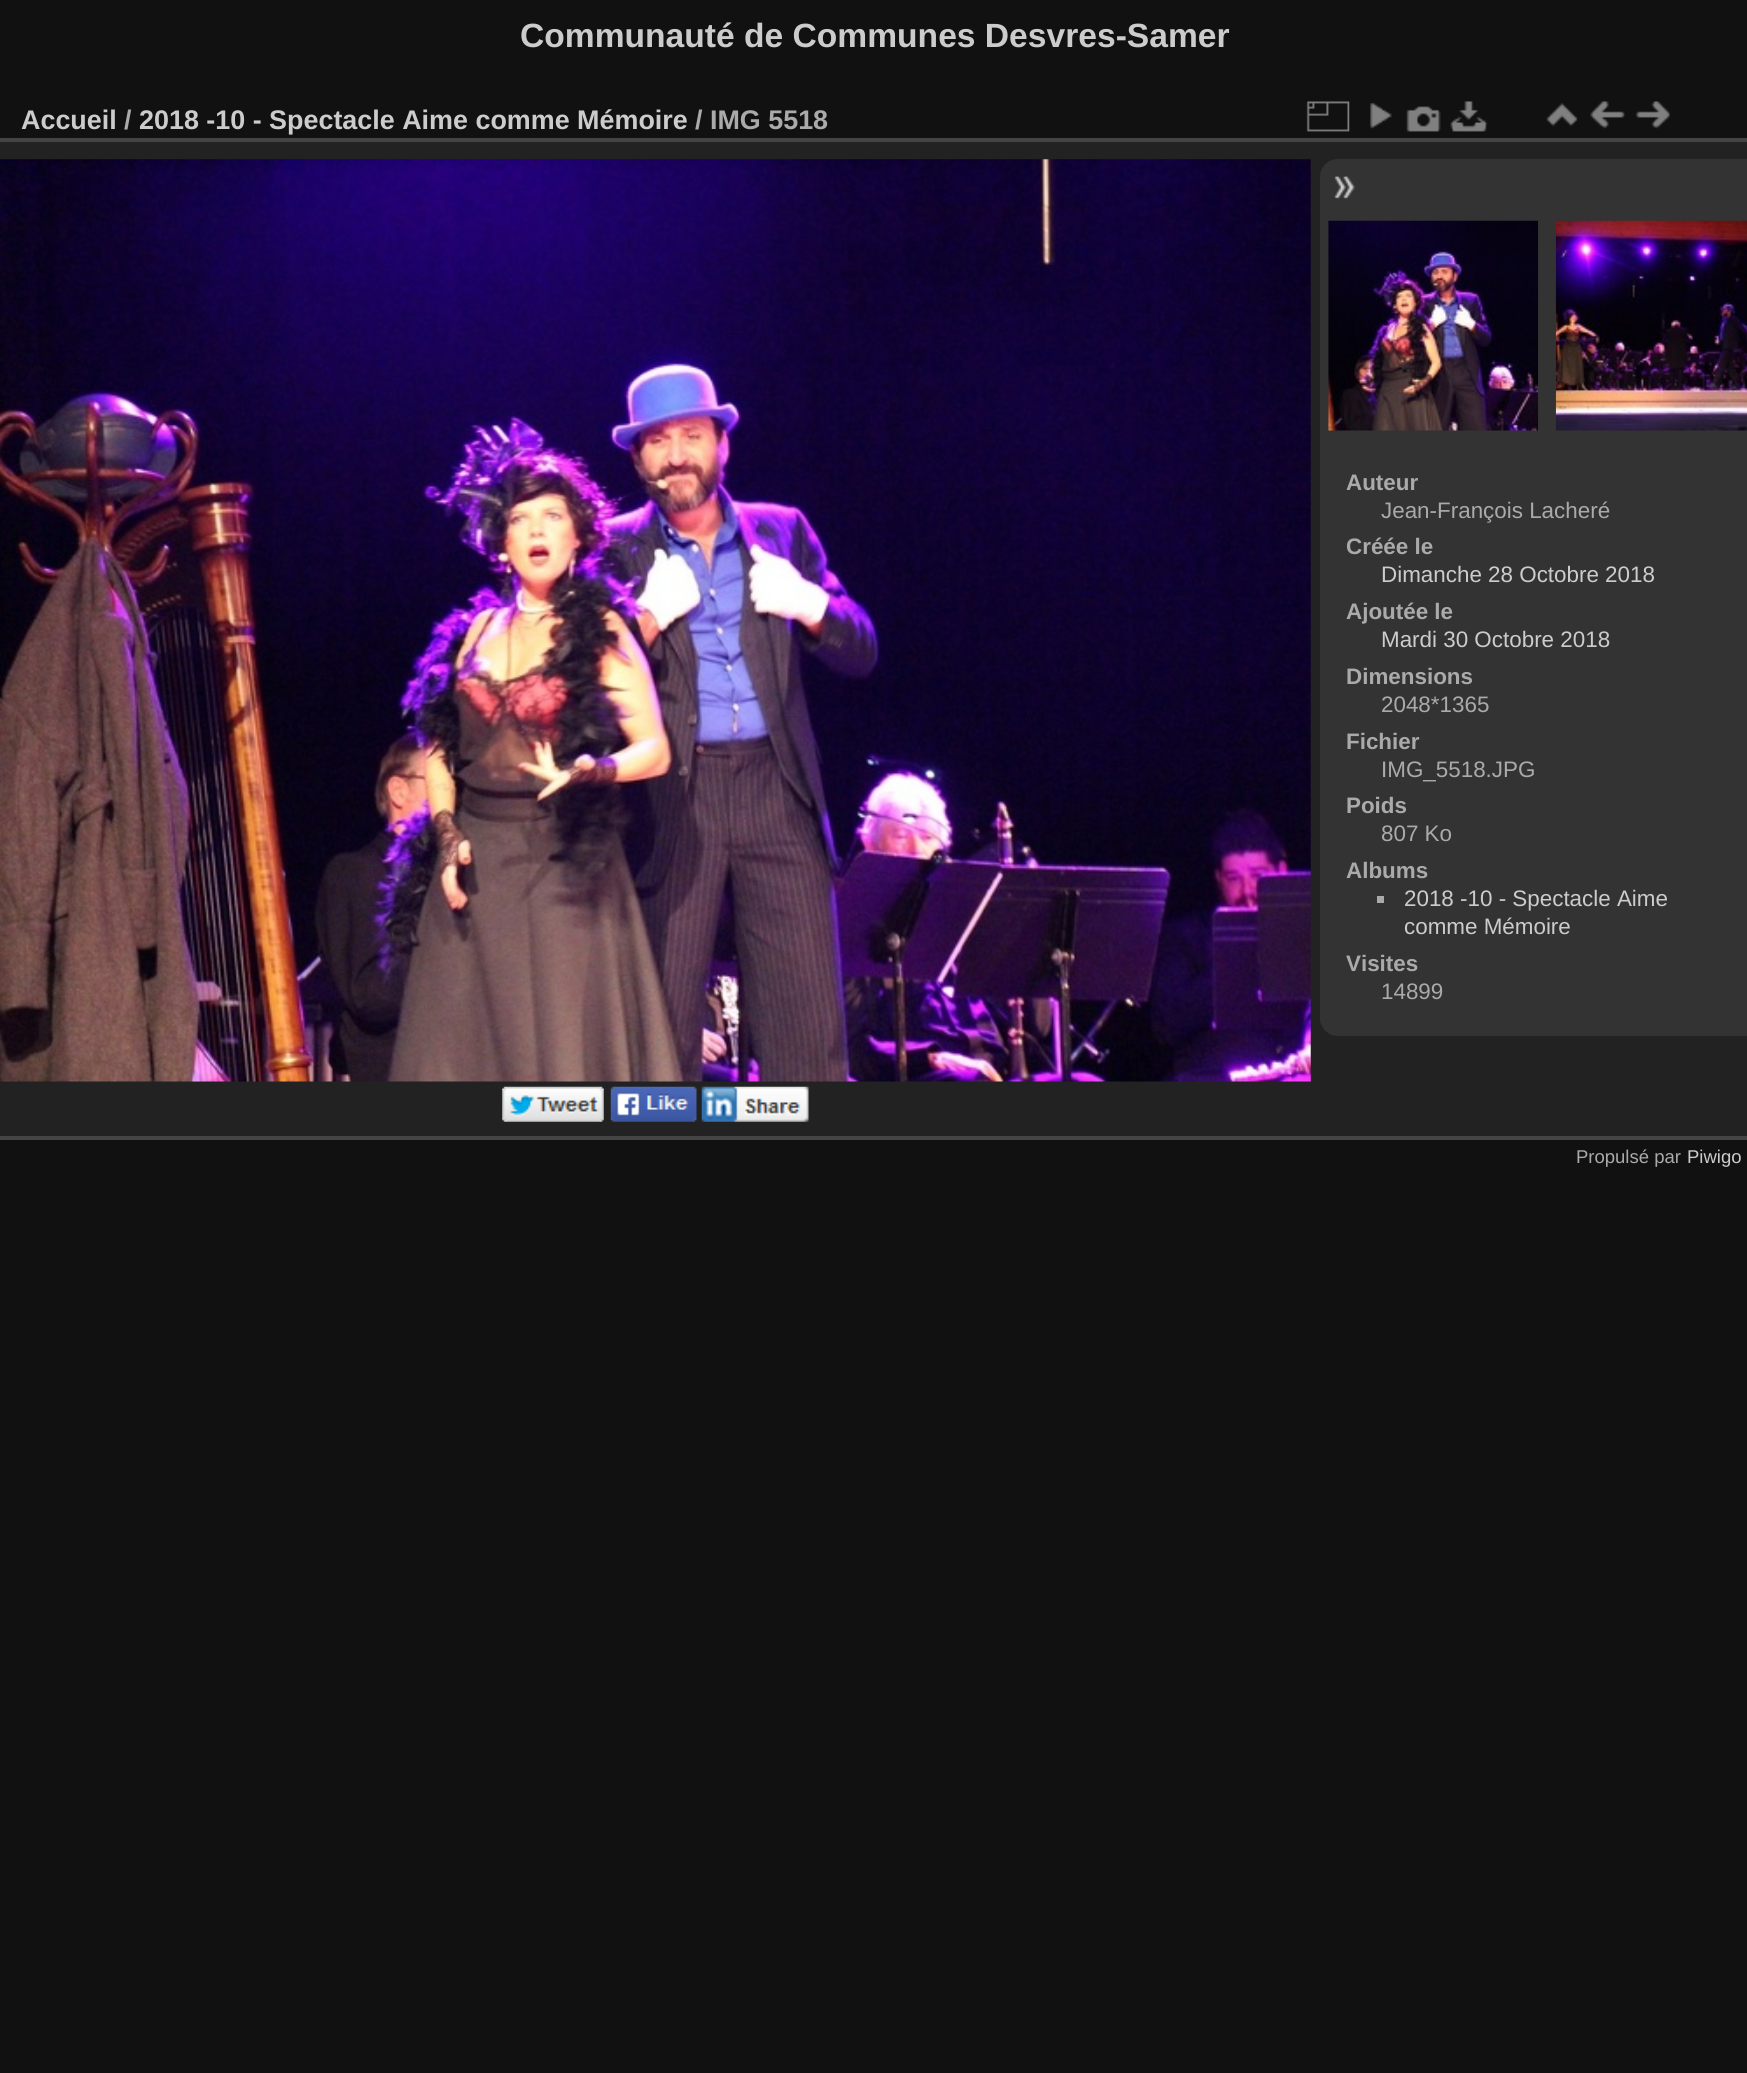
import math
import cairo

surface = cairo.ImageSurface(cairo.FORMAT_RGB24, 1747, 2073)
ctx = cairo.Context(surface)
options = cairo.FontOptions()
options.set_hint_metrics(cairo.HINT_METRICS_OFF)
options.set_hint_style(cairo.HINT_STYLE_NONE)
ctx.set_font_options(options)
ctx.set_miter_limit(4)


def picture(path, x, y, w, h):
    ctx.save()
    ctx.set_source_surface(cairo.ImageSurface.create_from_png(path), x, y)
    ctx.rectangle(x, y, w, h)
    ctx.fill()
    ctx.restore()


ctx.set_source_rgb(0.067, 0.067, 0.067)
ctx.paint()
ctx.select_font_face("Liberation Sans", cairo.FONT_SLANT_NORMAL, cairo.FONT_WEIGHT_BOLD)
ctx.set_font_size(33.6)
ctx.set_source_rgb(0.8, 0.8, 0.8)
ctx.move_to(520, 47)
ctx.show_text("Communauté de Communes Desvres-Samer")
ctx.set_source_rgb(0.133, 0.133, 0.133)
ctx.rectangle(0, 142, 1747, 994)
ctx.fill()
ctx.set_source_rgb(0.267, 0.267, 0.267)
ctx.rectangle(0, 1136, 1747, 4)
ctx.fill()
ctx.rectangle(0, 138, 1747, 4)
ctx.fill()
ctx.set_font_size(26.9)
ctx.set_source_rgb(0.8, 0.8, 0.8)
ctx.move_to(21, 129)
ctx.show_text("Accueil")
ctx.set_source_rgb(0.667, 0.667, 0.667)
ctx.move_to(124, 129)
ctx.show_text("/")
ctx.set_source_rgb(0.8, 0.8, 0.8)
ctx.move_to(139, 129)
ctx.show_text("2018 -10 - Spectacle Aime comme Mémoire")
ctx.set_source_rgb(0.667, 0.667, 0.667)
ctx.move_to(695, 129)
ctx.show_text("/ IMG 5518")
picture("img1.png", 1306, 101, 44, 31)
picture("img2.png", 1370, 102, 22, 27)
picture("img3.png", 1406, 106, 35, 26)
picture("img4.png", 1450, 101, 38, 31)
picture("img5.png", 1546, 103, 32, 24)
picture("img6.png", 1590, 101, 35, 28)
picture("img7.png", 1636, 101, 34, 28)
picture("img8.png", 0, 159, 1311, 923)
picture("img9.png", 502, 1086, 102, 36)
picture("img10.png", 610, 1086, 87, 36)
picture("img11.png", 701, 1086, 108, 36)
ctx.set_source_rgb(0.2, 0.2, 0.2)
ctx.new_path()
ctx.move_to(1338, 159)
ctx.line_to(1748, 159)
ctx.line_to(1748, 1036)
ctx.line_to(1338, 1036)
ctx.curve_to(1328, 1036, 1320, 1028, 1320, 1018)
ctx.line_to(1320, 177)
ctx.curve_to(1320, 167, 1328, 159, 1338, 159)
ctx.close_path()
ctx.fill()
picture("img12.png", 1334, 176, 21, 23)
picture("img13.png", 1328, 220, 211, 211)
picture("img14.png", 1555, 220, 192, 211)
ctx.set_font_size(22.4)
ctx.set_source_rgb(0.667, 0.667, 0.667)
ctx.move_to(1346, 490)
ctx.show_text("Auteur")
ctx.select_font_face("Liberation Sans")
ctx.move_to(1381, 518)
ctx.show_text("Jean-François Lacheré")
ctx.select_font_face("Liberation Sans", cairo.FONT_SLANT_NORMAL, cairo.FONT_WEIGHT_BOLD)
ctx.move_to(1346, 554)
ctx.show_text("Créée le")
ctx.select_font_face("Liberation Sans")
ctx.set_source_rgb(0.8, 0.8, 0.8)
ctx.move_to(1381, 582)
ctx.show_text("Dimanche 28 Octobre 2018")
ctx.select_font_face("Liberation Sans", cairo.FONT_SLANT_NORMAL, cairo.FONT_WEIGHT_BOLD)
ctx.set_source_rgb(0.667, 0.667, 0.667)
ctx.move_to(1346, 619)
ctx.show_text("Ajoutée le")
ctx.select_font_face("Liberation Sans")
ctx.set_source_rgb(0.8, 0.8, 0.8)
ctx.move_to(1381, 647)
ctx.show_text("Mardi 30 Octobre 2018")
ctx.select_font_face("Liberation Sans", cairo.FONT_SLANT_NORMAL, cairo.FONT_WEIGHT_BOLD)
ctx.set_source_rgb(0.667, 0.667, 0.667)
ctx.move_to(1346, 684)
ctx.show_text("Dimensions")
ctx.select_font_face("Liberation Sans")
ctx.move_to(1381, 712)
ctx.show_text("2048*1365")
ctx.select_font_face("Liberation Sans", cairo.FONT_SLANT_NORMAL, cairo.FONT_WEIGHT_BOLD)
ctx.move_to(1346, 749)
ctx.show_text("Fichier")
ctx.select_font_face("Liberation Sans")
ctx.move_to(1381, 777)
ctx.show_text("IMG_5518.JPG")
ctx.select_font_face("Liberation Sans", cairo.FONT_SLANT_NORMAL, cairo.FONT_WEIGHT_BOLD)
ctx.move_to(1346, 813)
ctx.show_text("Poids")
ctx.select_font_face("Liberation Sans")
ctx.move_to(1381, 841)
ctx.show_text("807 Ko")
ctx.select_font_face("Liberation Sans", cairo.FONT_SLANT_NORMAL, cairo.FONT_WEIGHT_BOLD)
ctx.move_to(1346, 878)
ctx.show_text("Albums")
ctx.rectangle(1377, 896, 7, 7)
ctx.fill()
ctx.select_font_face("Liberation Sans")
ctx.set_source_rgb(0.8, 0.8, 0.8)
ctx.move_to(1404, 906)
ctx.show_text("2018 -10 - Spectacle Aime")
ctx.move_to(1404, 934)
ctx.show_text("comme Mémoire")
ctx.select_font_face("Liberation Sans", cairo.FONT_SLANT_NORMAL, cairo.FONT_WEIGHT_BOLD)
ctx.set_source_rgb(0.667, 0.667, 0.667)
ctx.move_to(1346, 971)
ctx.show_text("Visites")
ctx.select_font_face("Liberation Sans")
ctx.move_to(1381, 999)
ctx.show_text("14899")
ctx.set_font_size(18.5)
ctx.move_to(1576, 1163)
ctx.show_text("Propulsé par")
ctx.set_source_rgb(0.8, 0.8, 0.8)
ctx.move_to(1687, 1163)
ctx.show_text("Piwigo")
surface.write_to_png("page.png")
